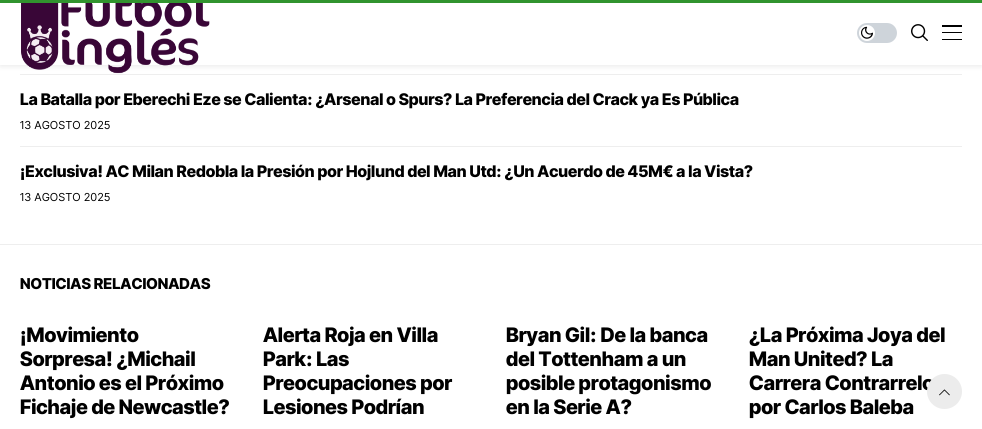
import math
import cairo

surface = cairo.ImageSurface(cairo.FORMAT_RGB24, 982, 429)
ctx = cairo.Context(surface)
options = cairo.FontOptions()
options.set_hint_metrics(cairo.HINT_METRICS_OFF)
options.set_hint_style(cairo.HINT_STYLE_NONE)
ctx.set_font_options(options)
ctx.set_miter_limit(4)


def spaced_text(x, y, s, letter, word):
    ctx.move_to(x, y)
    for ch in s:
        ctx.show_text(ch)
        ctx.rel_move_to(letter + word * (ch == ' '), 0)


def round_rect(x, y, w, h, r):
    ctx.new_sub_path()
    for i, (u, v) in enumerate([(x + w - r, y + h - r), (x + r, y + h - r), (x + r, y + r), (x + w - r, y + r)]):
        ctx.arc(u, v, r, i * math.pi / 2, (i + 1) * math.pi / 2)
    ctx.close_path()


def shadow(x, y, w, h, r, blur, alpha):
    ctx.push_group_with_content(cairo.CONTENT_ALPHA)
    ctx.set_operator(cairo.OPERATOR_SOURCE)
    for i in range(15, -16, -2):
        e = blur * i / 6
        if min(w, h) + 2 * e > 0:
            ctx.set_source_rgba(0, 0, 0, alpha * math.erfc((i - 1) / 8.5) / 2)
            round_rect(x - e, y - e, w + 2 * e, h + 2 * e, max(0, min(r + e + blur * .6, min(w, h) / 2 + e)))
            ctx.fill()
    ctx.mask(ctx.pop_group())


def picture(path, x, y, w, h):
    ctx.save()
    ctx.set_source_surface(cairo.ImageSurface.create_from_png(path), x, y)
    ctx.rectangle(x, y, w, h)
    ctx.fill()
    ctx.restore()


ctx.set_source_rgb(1, 1, 1)
ctx.paint()
ctx.set_source_rgb(0.933, 0.933, 0.933)
ctx.rectangle(20, 74, 942, 1)
ctx.fill()
ctx.set_source_rgb(0, 0, 0)
shadow(0, 2, 982, 65, 0, 2.5, 0.07)
ctx.set_source_rgb(1, 1, 1)
ctx.rectangle(0, 3, 982, 62)
ctx.fill()
picture("img1.png", 21, 3, 189, 71)
ctx.set_source_rgb(0.808, 0.831, 0.855)
round_rect(857, 23, 40, 20, 10)
ctx.fill()
ctx.set_source_rgb(1, 1, 1)
ctx.arc(867, 33, 8, 0, 2 * math.pi)
ctx.fill()
picture("img2.png", 861, 26, 12, 13)
picture("img3.png", 911, 24, 17, 17)
ctx.set_source_rgb(0, 0, 0)
ctx.rectangle(942, 25, 20, 2)
ctx.fill()
ctx.rectangle(942, 32, 20, 1)
ctx.fill()
ctx.rectangle(942, 39, 20, 1)
ctx.fill()
ctx.set_source_rgb(0.192, 0.58, 0.18)
ctx.rectangle(0, 0, 982, 3)
ctx.fill()
ctx.select_font_face("Inter Tight ExtraBold")
ctx.set_font_size(16)
ctx.set_source_rgb(0, 0, 0)
ctx.move_to(20, 105)
ctx.show_text("La Batalla por Eberechi Eze se Calienta: ¿Arsenal o Spurs? La Preferencia del Crack ya Es Pública")
ctx.select_font_face("Inter Tight")
ctx.set_font_size(11)
spaced_text(20, 129, "13 AGOSTO 2025", 0.5, 0)
ctx.set_source_rgb(0.933, 0.933, 0.933)
ctx.rectangle(20, 146, 942, 1)
ctx.fill()
ctx.select_font_face("Inter Tight ExtraBold")
ctx.set_font_size(16)
ctx.set_source_rgb(0, 0, 0)
ctx.move_to(20, 177)
ctx.show_text("¡Exclusiva! AC Milan Redobla la Presión por Hojlund del Man Utd: ¿Un Acuerdo de 45M€ a la Vista?")
ctx.select_font_face("Inter Tight")
ctx.set_font_size(11)
spaced_text(20, 201, "13 AGOSTO 2025", 0.5, 0)
ctx.set_source_rgb(0.933, 0.933, 0.933)
ctx.rectangle(0, 244, 982, 1)
ctx.fill()
ctx.select_font_face("Inter Tight ExtraBold")
ctx.set_font_size(15)
ctx.set_source_rgb(0, 0, 0)
ctx.move_to(20, 289)
ctx.show_text("NOTICIAS RELACIONADAS")
ctx.set_font_size(20)
ctx.move_to(20, 342)
ctx.show_text("¡Movimiento")
ctx.move_to(20, 366)
ctx.show_text("Sorpresa! ¿Michail")
ctx.move_to(20, 390)
ctx.show_text("Antonio es el Próximo")
ctx.move_to(20, 414)
ctx.show_text("Fichaje de Newcastle?")
ctx.move_to(263, 342)
ctx.show_text("Alerta Roja en Villa")
ctx.move_to(263, 366)
ctx.show_text("Park: Las")
ctx.move_to(263, 390)
ctx.show_text("Preocupaciones por")
ctx.move_to(263, 414)
ctx.show_text("Lesiones Podrían")
ctx.move_to(506, 342)
ctx.show_text("Bryan Gil: De la banca")
ctx.move_to(506, 366)
ctx.show_text("del Tottenham a un")
ctx.move_to(506, 390)
ctx.show_text("posible protagonismo")
ctx.move_to(506, 414)
ctx.show_text("en la Serie A?")
ctx.move_to(749, 342)
ctx.show_text("¿La Próxima Joya del")
ctx.move_to(749, 366)
ctx.show_text("Man United? La")
ctx.move_to(749, 390)
ctx.show_text("Carrera Contrarrelo")
ctx.move_to(749, 414)
ctx.show_text("por Carlos Baleba")
ctx.set_source_rgb(0.922, 0.922, 0.922)
ctx.new_path()
ctx.arc(944.5, 391.5, 17.5, 0, 2 * math.pi)
ctx.fill()
picture("img4.png", 939, 389, 11, 7)
surface.write_to_png("page.png")
